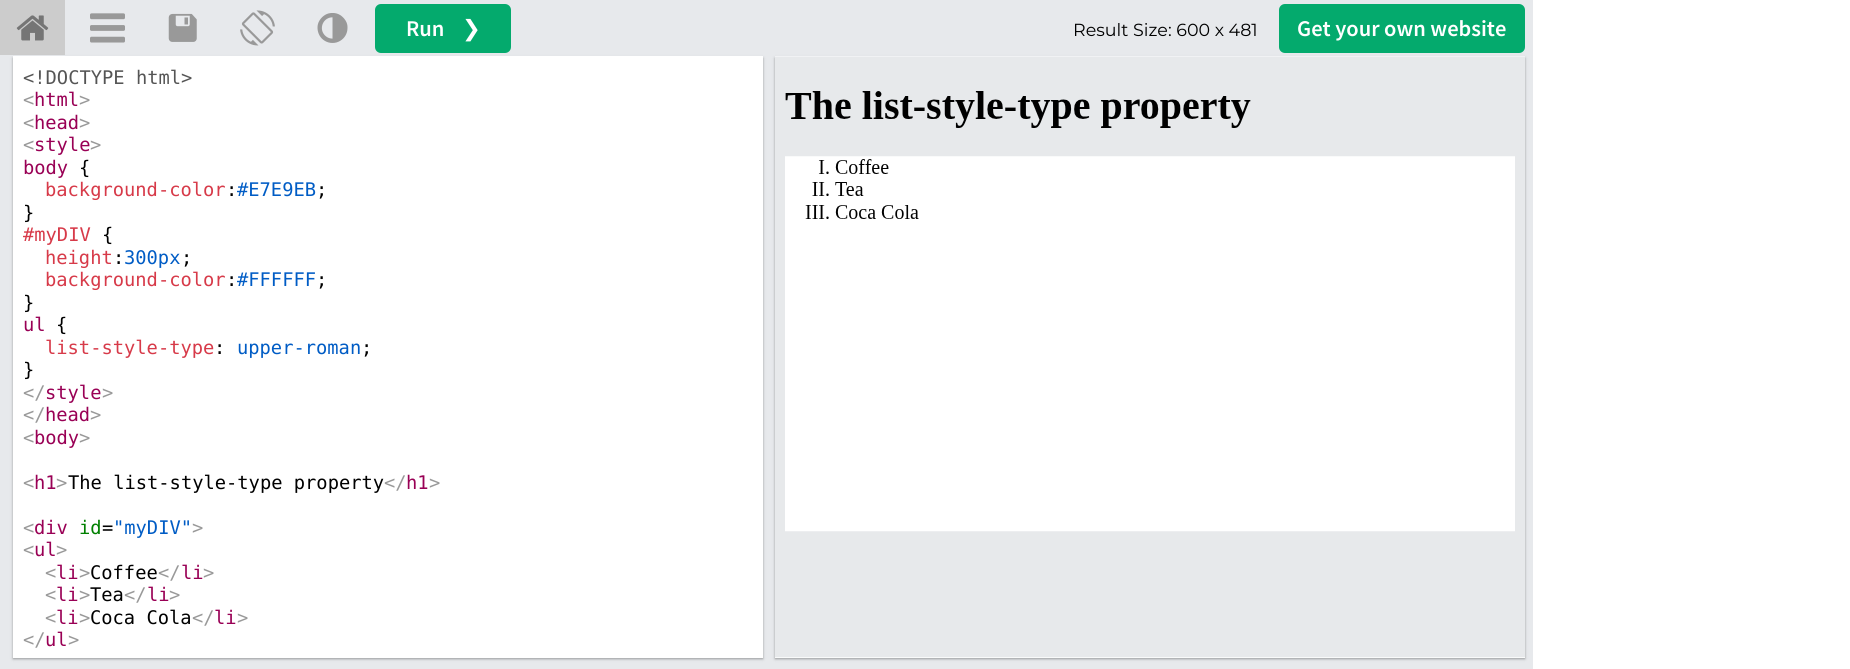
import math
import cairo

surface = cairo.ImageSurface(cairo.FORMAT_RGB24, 1850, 669)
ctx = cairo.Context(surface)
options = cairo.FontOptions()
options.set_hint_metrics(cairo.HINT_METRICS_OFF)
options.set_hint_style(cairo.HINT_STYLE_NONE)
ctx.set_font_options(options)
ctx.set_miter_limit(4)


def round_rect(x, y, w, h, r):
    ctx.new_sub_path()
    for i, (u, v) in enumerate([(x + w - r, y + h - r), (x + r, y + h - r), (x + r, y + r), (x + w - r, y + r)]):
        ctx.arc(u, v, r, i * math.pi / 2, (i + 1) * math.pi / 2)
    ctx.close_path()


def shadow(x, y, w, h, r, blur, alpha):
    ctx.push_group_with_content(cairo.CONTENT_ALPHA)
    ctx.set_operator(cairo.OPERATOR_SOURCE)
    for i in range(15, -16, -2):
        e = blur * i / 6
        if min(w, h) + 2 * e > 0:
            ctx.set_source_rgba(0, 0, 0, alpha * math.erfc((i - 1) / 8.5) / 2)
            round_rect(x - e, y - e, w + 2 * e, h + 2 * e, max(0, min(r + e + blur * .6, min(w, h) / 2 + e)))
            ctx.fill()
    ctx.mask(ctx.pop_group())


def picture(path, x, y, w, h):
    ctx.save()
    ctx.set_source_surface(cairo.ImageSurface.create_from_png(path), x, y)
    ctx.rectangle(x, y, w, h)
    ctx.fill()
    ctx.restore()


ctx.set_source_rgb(1, 1, 1)
ctx.paint()
ctx.set_source_rgb(0.906, 0.914, 0.922)
ctx.rectangle(65, 0, 1468, 55)
ctx.fill()
ctx.set_source_rgb(0.8, 0.8, 0.8)
ctx.rectangle(0, 0, 65, 55)
ctx.fill()
picture("img1.png", 16, 15, 33, 26)
picture("img2.png", 90, 13, 35, 30)
picture("img3.png", 168, 13, 29, 29)
picture("img4.png", 240, 10, 35, 36)
picture("img5.png", 317, 13, 31, 30)
ctx.set_source_rgb(0.016, 0.667, 0.427)
round_rect(375, 4, 136, 49, 6)
ctx.fill()
ctx.select_font_face("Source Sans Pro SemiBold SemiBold")
ctx.set_font_size(22.5)
ctx.set_source_rgb(1, 1, 1)
ctx.move_to(406, 36)
ctx.show_text("Run")
ctx.select_font_face("DejaVu Sans")
ctx.move_to(462, 36)
ctx.show_text("❯")
ctx.select_font_face("Montserrat")
ctx.set_font_size(17.5)
ctx.set_source_rgb(0, 0, 0)
ctx.move_to(1073, 36)
ctx.show_text("Result Size: 600 x 481")
ctx.set_source_rgb(0.016, 0.667, 0.427)
round_rect(1279, 4, 246, 49, 6)
ctx.fill()
ctx.select_font_face("Source Sans Pro SemiBold SemiBold")
ctx.set_font_size(22.5)
ctx.set_source_rgb(1, 1, 1)
ctx.move_to(1297, 36)
ctx.show_text("Get your own website")
ctx.set_source_rgb(0.906, 0.914, 0.922)
ctx.rectangle(0, 55, 1533, 614)
ctx.fill()
ctx.set_source_rgb(0, 0, 0)
shadow(13, 58, 750, 601, 0, 1, 0.24)
shadow(13, 58, 750, 601, 0, 2, 0.12)
ctx.set_source_rgb(1, 1, 1)
ctx.rectangle(13, 56, 750, 602)
ctx.fill()
ctx.select_font_face("DejaVu Sans Mono")
ctx.set_font_size(18.75)
ctx.set_source_rgb(0.333, 0.333, 0.333)
ctx.move_to(23, 84)
ctx.show_text("<!DOCTYPE html>")
ctx.set_source_rgb(0.6, 0.6, 0.6)
ctx.move_to(23, 106)
ctx.show_text("<")
ctx.set_source_rgb(0.6, 0, 0.333)
ctx.move_to(34, 106)
ctx.show_text("html")
ctx.set_source_rgb(0.6, 0.6, 0.6)
ctx.move_to(79, 106)
ctx.show_text(">")
ctx.move_to(23, 129)
ctx.show_text("<")
ctx.set_source_rgb(0.6, 0, 0.333)
ctx.move_to(34, 129)
ctx.show_text("head")
ctx.set_source_rgb(0.6, 0.6, 0.6)
ctx.move_to(79, 129)
ctx.show_text(">")
ctx.move_to(23, 151)
ctx.show_text("<")
ctx.set_source_rgb(0.6, 0, 0.333)
ctx.move_to(34, 151)
ctx.show_text("style")
ctx.set_source_rgb(0.6, 0.6, 0.6)
ctx.move_to(90, 151)
ctx.show_text(">")
ctx.set_source_rgb(0.6, 0, 0.333)
ctx.move_to(23, 174)
ctx.show_text("body")
ctx.set_source_rgb(0, 0, 0)
ctx.move_to(79, 174)
ctx.show_text("{")
ctx.set_source_rgb(0.843, 0.227, 0.286)
ctx.move_to(45, 196)
ctx.show_text("background-color")
ctx.set_source_rgb(0, 0, 0)
ctx.move_to(226, 196)
ctx.show_text(":")
ctx.set_source_rgb(0, 0.361, 0.773)
ctx.move_to(237, 196)
ctx.show_text("#E7E9EB")
ctx.set_source_rgb(0, 0, 0)
ctx.move_to(316, 196)
ctx.show_text(";")
ctx.move_to(23, 219)
ctx.show_text("}")
ctx.set_source_rgb(0.843, 0.227, 0.286)
ctx.move_to(23, 241)
ctx.show_text("#myDIV")
ctx.set_source_rgb(0, 0, 0)
ctx.move_to(102, 241)
ctx.show_text("{")
ctx.set_source_rgb(0.843, 0.227, 0.286)
ctx.move_to(45, 264)
ctx.show_text("height")
ctx.set_source_rgb(0, 0, 0)
ctx.move_to(113, 264)
ctx.show_text(":")
ctx.set_source_rgb(0, 0.361, 0.773)
ctx.move_to(124, 264)
ctx.show_text("300px")
ctx.set_source_rgb(0, 0, 0)
ctx.move_to(181, 264)
ctx.show_text(";")
ctx.set_source_rgb(0.843, 0.227, 0.286)
ctx.move_to(45, 286)
ctx.show_text("background-color")
ctx.set_source_rgb(0, 0, 0)
ctx.move_to(226, 286)
ctx.show_text(":")
ctx.set_source_rgb(0, 0.361, 0.773)
ctx.move_to(237, 286)
ctx.show_text("#FFFFFF")
ctx.set_source_rgb(0, 0, 0)
ctx.move_to(316, 286)
ctx.show_text(";")
ctx.move_to(23, 309)
ctx.show_text("}")
ctx.set_source_rgb(0.6, 0, 0.333)
ctx.move_to(23, 331)
ctx.show_text("ul")
ctx.set_source_rgb(0, 0, 0)
ctx.move_to(56, 331)
ctx.show_text("{")
ctx.set_source_rgb(0.843, 0.227, 0.286)
ctx.move_to(45, 354)
ctx.show_text("list-style-type")
ctx.set_source_rgb(0, 0, 0)
ctx.move_to(214, 354)
ctx.show_text(":")
ctx.set_source_rgb(0, 0.361, 0.773)
ctx.move_to(237, 354)
ctx.show_text("upper-roman")
ctx.set_source_rgb(0, 0, 0)
ctx.move_to(361, 354)
ctx.show_text(";")
ctx.move_to(23, 376)
ctx.show_text("}")
ctx.set_source_rgb(0.6, 0.6, 0.6)
ctx.move_to(23, 399)
ctx.show_text("</")
ctx.set_source_rgb(0.6, 0, 0.333)
ctx.move_to(45, 399)
ctx.show_text("style")
ctx.set_source_rgb(0.6, 0.6, 0.6)
ctx.move_to(102, 399)
ctx.show_text(">")
ctx.move_to(23, 421)
ctx.show_text("</")
ctx.set_source_rgb(0.6, 0, 0.333)
ctx.move_to(45, 421)
ctx.show_text("head")
ctx.set_source_rgb(0.6, 0.6, 0.6)
ctx.move_to(90, 421)
ctx.show_text(">")
ctx.move_to(23, 444)
ctx.show_text("<")
ctx.set_source_rgb(0.6, 0, 0.333)
ctx.move_to(34, 444)
ctx.show_text("body")
ctx.set_source_rgb(0.6, 0.6, 0.6)
ctx.move_to(79, 444)
ctx.show_text(">")
ctx.move_to(23, 489)
ctx.show_text("<")
ctx.set_source_rgb(0.6, 0, 0.333)
ctx.move_to(34, 489)
ctx.show_text("h1")
ctx.set_source_rgb(0.6, 0.6, 0.6)
ctx.move_to(56, 489)
ctx.show_text(">")
ctx.set_source_rgb(0, 0, 0)
ctx.move_to(68, 489)
ctx.show_text("The list-style-type property")
ctx.set_source_rgb(0.6, 0.6, 0.6)
ctx.move_to(384, 489)
ctx.show_text("</")
ctx.set_source_rgb(0.6, 0, 0.333)
ctx.move_to(406, 489)
ctx.show_text("h1")
ctx.set_source_rgb(0.6, 0.6, 0.6)
ctx.move_to(429, 489)
ctx.show_text(">")
ctx.move_to(23, 534)
ctx.show_text("<")
ctx.set_source_rgb(0.6, 0, 0.333)
ctx.move_to(34, 534)
ctx.show_text("div")
ctx.set_source_rgb(0, 0.502, 0)
ctx.move_to(79, 534)
ctx.show_text("id")
ctx.set_source_rgb(0, 0, 0)
ctx.move_to(102, 534)
ctx.show_text("=")
ctx.set_source_rgb(0, 0.361, 0.773)
ctx.move_to(113, 534)
ctx.show_text("\"myDIV\"")
ctx.set_source_rgb(0.6, 0.6, 0.6)
ctx.move_to(192, 534)
ctx.show_text(">")
ctx.move_to(23, 556)
ctx.show_text("<")
ctx.set_source_rgb(0.6, 0, 0.333)
ctx.move_to(34, 556)
ctx.show_text("ul")
ctx.set_source_rgb(0.6, 0.6, 0.6)
ctx.move_to(56, 556)
ctx.show_text(">")
ctx.move_to(45, 579)
ctx.show_text("<")
ctx.set_source_rgb(0.6, 0, 0.333)
ctx.move_to(56, 579)
ctx.show_text("li")
ctx.set_source_rgb(0.6, 0.6, 0.6)
ctx.move_to(79, 579)
ctx.show_text(">")
ctx.set_source_rgb(0, 0, 0)
ctx.move_to(90, 579)
ctx.show_text("Coffee")
ctx.set_source_rgb(0.6, 0.6, 0.6)
ctx.move_to(158, 579)
ctx.show_text("</")
ctx.set_source_rgb(0.6, 0, 0.333)
ctx.move_to(181, 579)
ctx.show_text("li")
ctx.set_source_rgb(0.6, 0.6, 0.6)
ctx.move_to(203, 579)
ctx.show_text(">")
ctx.move_to(45, 601)
ctx.show_text("<")
ctx.set_source_rgb(0.6, 0, 0.333)
ctx.move_to(56, 601)
ctx.show_text("li")
ctx.set_source_rgb(0.6, 0.6, 0.6)
ctx.move_to(79, 601)
ctx.show_text(">")
ctx.set_source_rgb(0, 0, 0)
ctx.move_to(90, 601)
ctx.show_text("Tea")
ctx.set_source_rgb(0.6, 0.6, 0.6)
ctx.move_to(124, 601)
ctx.show_text("</")
ctx.set_source_rgb(0.6, 0, 0.333)
ctx.move_to(147, 601)
ctx.show_text("li")
ctx.set_source_rgb(0.6, 0.6, 0.6)
ctx.move_to(169, 601)
ctx.show_text(">")
ctx.move_to(45, 624)
ctx.show_text("<")
ctx.set_source_rgb(0.6, 0, 0.333)
ctx.move_to(56, 624)
ctx.show_text("li")
ctx.set_source_rgb(0.6, 0.6, 0.6)
ctx.move_to(79, 624)
ctx.show_text(">")
ctx.set_source_rgb(0, 0, 0)
ctx.move_to(90, 624)
ctx.show_text("Coca Cola")
ctx.set_source_rgb(0.6, 0.6, 0.6)
ctx.move_to(192, 624)
ctx.show_text("</")
ctx.set_source_rgb(0.6, 0, 0.333)
ctx.move_to(214, 624)
ctx.show_text("li")
ctx.set_source_rgb(0.6, 0.6, 0.6)
ctx.move_to(237, 624)
ctx.show_text(">")
ctx.move_to(23, 646)
ctx.show_text("</")
ctx.set_source_rgb(0.6, 0, 0.333)
ctx.move_to(45, 646)
ctx.show_text("ul")
ctx.set_source_rgb(0.6, 0.6, 0.6)
ctx.move_to(68, 646)
ctx.show_text(">")
ctx.set_source_rgb(0, 0, 0)
shadow(775, 58, 750, 601, 0, 1, 0.24)
shadow(775, 58, 750, 601, 0, 2, 0.12)
ctx.set_source_rgb(1, 1, 1)
ctx.rectangle(775, 56, 750, 602)
ctx.fill()
picture("img6.png", 775, 56, 750, 602)
surface.write_to_png("page.png")
